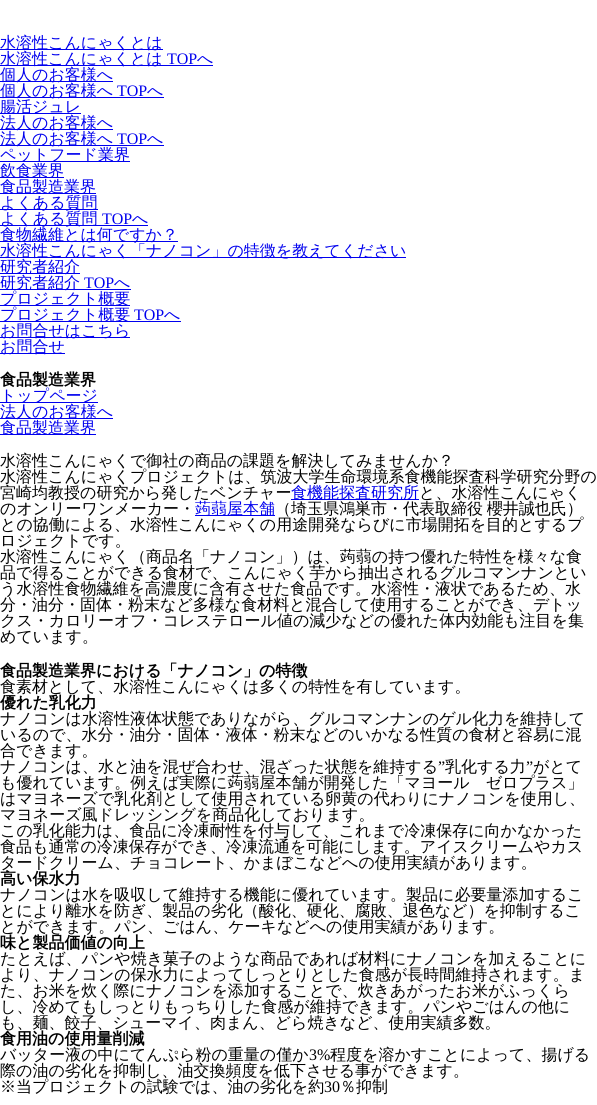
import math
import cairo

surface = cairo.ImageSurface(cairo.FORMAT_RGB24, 597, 1105)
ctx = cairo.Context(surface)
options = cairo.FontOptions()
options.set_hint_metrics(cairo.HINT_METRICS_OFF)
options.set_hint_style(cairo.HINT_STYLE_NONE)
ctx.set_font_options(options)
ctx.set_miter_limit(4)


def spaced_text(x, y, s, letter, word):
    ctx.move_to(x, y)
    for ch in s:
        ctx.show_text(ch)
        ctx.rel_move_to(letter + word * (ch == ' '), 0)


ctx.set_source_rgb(1, 1, 1)
ctx.paint()
ctx.set_source_rgb(0, 0, 0.933)
ctx.rectangle(0, 49, 163, 1)
ctx.fill()
ctx.select_font_face("WenQuanYi Zen Hei Medium")
ctx.set_font_size(16)
ctx.move_to(0, 48)
ctx.show_text("水溶性こんにゃくとは")
ctx.rectangle(0, 65, 213, 1)
ctx.fill()
ctx.move_to(0, 64)
ctx.show_text("水溶性こんにゃくとは")
ctx.select_font_face("Liberation Serif")
ctx.move_to(167, 64)
ctx.show_text("TOP")
ctx.select_font_face("WenQuanYi Zen Hei Medium")
ctx.move_to(197, 64)
ctx.show_text("へ")
ctx.rectangle(0, 81, 113, 1)
ctx.fill()
ctx.move_to(0, 80)
ctx.show_text("個人のお客様へ")
ctx.rectangle(0, 97, 164, 1)
ctx.fill()
ctx.move_to(0, 96)
ctx.show_text("個人のお客様へ")
ctx.select_font_face("Liberation Serif")
ctx.move_to(117, 96)
ctx.show_text("TOP")
ctx.select_font_face("WenQuanYi Zen Hei Medium")
ctx.move_to(147, 96)
ctx.show_text("へ")
ctx.rectangle(0, 113, 81, 1)
ctx.fill()
ctx.move_to(0, 112)
ctx.show_text("腸活ジュレ")
ctx.rectangle(0, 129, 113, 1)
ctx.fill()
ctx.move_to(0, 128)
ctx.show_text("法人のお客様へ")
ctx.rectangle(0, 145, 164, 1)
ctx.fill()
ctx.move_to(0, 144)
ctx.show_text("法人のお客様へ")
ctx.select_font_face("Liberation Serif")
ctx.move_to(117, 144)
ctx.show_text("TOP")
ctx.select_font_face("WenQuanYi Zen Hei Medium")
ctx.move_to(147, 144)
ctx.show_text("へ")
ctx.rectangle(0, 161, 130, 1)
ctx.fill()
ctx.move_to(0, 160)
ctx.show_text("ペットフード業界")
ctx.rectangle(0, 177, 64, 1)
ctx.fill()
ctx.move_to(0, 176)
ctx.show_text("飲食業界")
ctx.rectangle(0, 193, 96, 1)
ctx.fill()
ctx.move_to(0, 192)
ctx.show_text("食品製造業界")
ctx.rectangle(0, 209, 98, 1)
ctx.fill()
ctx.move_to(0, 208)
ctx.show_text("よくある質問")
ctx.rectangle(0, 225, 148, 1)
ctx.fill()
ctx.move_to(0, 224)
ctx.show_text("よくある質問")
ctx.select_font_face("Liberation Serif")
ctx.move_to(102, 224)
ctx.show_text("TOP")
ctx.select_font_face("WenQuanYi Zen Hei Medium")
ctx.move_to(132, 224)
ctx.show_text("へ")
ctx.rectangle(0, 241, 178, 1)
ctx.fill()
ctx.move_to(0, 240)
ctx.show_text("食物繊維とは何ですか？")
ctx.rectangle(0, 257, 406, 1)
ctx.fill()
ctx.move_to(0, 256)
ctx.show_text("水溶性こんにゃく「ナノコン」の特徴を教えてください")
ctx.rectangle(0, 273, 80, 1)
ctx.fill()
ctx.move_to(0, 272)
ctx.show_text("研究者紹介")
ctx.rectangle(0, 289, 131, 1)
ctx.fill()
ctx.move_to(0, 288)
ctx.show_text("研究者紹介")
ctx.select_font_face("Liberation Serif")
ctx.move_to(84, 288)
ctx.show_text("TOP")
ctx.select_font_face("WenQuanYi Zen Hei Medium")
ctx.move_to(114, 288)
ctx.show_text("へ")
ctx.rectangle(0, 305, 130, 1)
ctx.fill()
ctx.move_to(0, 304)
ctx.show_text("プロジェクト概要")
ctx.rectangle(0, 321, 181, 1)
ctx.fill()
ctx.move_to(0, 320)
ctx.show_text("プロジェクト概要")
ctx.select_font_face("Liberation Serif")
ctx.move_to(134, 320)
ctx.show_text("TOP")
ctx.select_font_face("WenQuanYi Zen Hei Medium")
ctx.move_to(164, 320)
ctx.show_text("へ")
ctx.rectangle(0, 337, 130, 1)
ctx.fill()
ctx.move_to(0, 336)
ctx.show_text("お問合せはこちら")
ctx.rectangle(0, 353, 65, 1)
ctx.fill()
ctx.move_to(0, 352)
ctx.show_text("お問合せ")
ctx.select_font_face("WenQuanYi Zen Hei", cairo.FONT_SLANT_NORMAL, cairo.FONT_WEIGHT_BOLD)
ctx.set_source_rgb(0, 0, 0)
ctx.move_to(0, 385)
ctx.show_text("食品製造業界")
ctx.set_source_rgb(0, 0, 0.933)
ctx.rectangle(0, 402, 98, 1)
ctx.fill()
ctx.select_font_face("WenQuanYi Zen Hei Medium")
ctx.move_to(0, 401)
ctx.show_text("トップページ")
ctx.rectangle(0, 418, 113, 1)
ctx.fill()
ctx.move_to(0, 417)
ctx.show_text("法人のお客様へ")
ctx.rectangle(0, 434, 96, 1)
ctx.fill()
ctx.move_to(0, 433)
ctx.show_text("食品製造業界")
ctx.set_source_rgb(0, 0, 0)
ctx.move_to(0, 466)
ctx.show_text("水溶性こんにゃくで御社の商品の課題を解決してみませんか？")
ctx.move_to(0, 482)
ctx.show_text("水溶性こんにゃくプロジェクトは、筑波大学生命環境系食機能探査科学研究分野の")
ctx.move_to(0, 498)
ctx.show_text("宮崎均教授の研究から発したベンチャー")
ctx.set_source_rgb(0, 0, 0.933)
ctx.rectangle(291, 499, 128, 1)
ctx.fill()
ctx.move_to(291, 498)
ctx.show_text("食機能探査研究所")
ctx.set_source_rgb(0, 0, 0)
ctx.move_to(419, 498)
ctx.show_text("と、水溶性こんにゃく")
ctx.move_to(0, 514)
ctx.show_text("のオンリーワンメーカー・")
ctx.set_source_rgb(0, 0, 0.933)
ctx.rectangle(195, 515, 80, 1)
ctx.fill()
ctx.move_to(195, 514)
ctx.show_text("蒟蒻屋本舗")
ctx.set_source_rgb(0, 0, 0)
spaced_text(275, 514, "（埼玉県鴻巣市・代表取締役 櫻井誠也氏）", 0, -1)
ctx.move_to(0, 530)
ctx.show_text("との協働による、水溶性こんにゃくの用途開発ならびに市場開拓を目的とするプ")
ctx.move_to(0, 546)
ctx.show_text("ロジェクトです。")
ctx.move_to(0, 562)
ctx.show_text("水溶性こんにゃく（商品名「ナノコン」）は、蒟蒻の持つ優れた特性を様々な食")
ctx.move_to(0, 578)
ctx.show_text("品で得ることができる食材で、こんにゃく芋から抽出されるグルコマンナンとい")
ctx.move_to(0, 594)
ctx.show_text("う水溶性食物繊維を高濃度に含有させた食品です。水溶性・液状であるため、水")
ctx.move_to(0, 610)
ctx.show_text("分・油分・固体・粉末など多様な食材料と混合して使用することができ、デトッ")
ctx.move_to(0, 626)
ctx.show_text("クス・カロリーオフ・コレステロール値の減少などの優れた体内効能も注目を集")
ctx.move_to(0, 642)
ctx.show_text("めています。")
ctx.select_font_face("WenQuanYi Zen Hei", cairo.FONT_SLANT_NORMAL, cairo.FONT_WEIGHT_BOLD)
ctx.move_to(0, 676)
ctx.show_text("食品製造業界における「ナノコン」の特徴")
ctx.select_font_face("WenQuanYi Zen Hei Medium")
ctx.move_to(0, 692)
ctx.show_text("食素材として、水溶性こんにゃくは多くの特性を有しています。")
ctx.select_font_face("WenQuanYi Zen Hei", cairo.FONT_SLANT_NORMAL, cairo.FONT_WEIGHT_BOLD)
ctx.move_to(0, 708)
ctx.show_text("優れた乳化力")
ctx.select_font_face("WenQuanYi Zen Hei Medium")
ctx.move_to(0, 724)
ctx.show_text("ナノコンは水溶性液体状態でありながら、グルコマンナンのゲル化力を維持して")
ctx.move_to(0, 740)
ctx.show_text("いるので、水分・油分・固体・液体・粉末などのいかなる性質の食材と容易に混")
ctx.move_to(0, 756)
ctx.show_text("合できます。")
ctx.move_to(0, 772)
ctx.show_text("ナノコンは、水と油を混ぜ合わせ、混ざった状態を維持する")
ctx.select_font_face("Liberation Serif")
ctx.move_to(438, 772)
ctx.show_text("”")
ctx.select_font_face("WenQuanYi Zen Hei Medium")
ctx.move_to(445, 772)
ctx.show_text("乳化する力")
ctx.select_font_face("Liberation Serif")
ctx.move_to(526, 772)
ctx.show_text("”")
ctx.select_font_face("WenQuanYi Zen Hei Medium")
ctx.move_to(533, 772)
ctx.show_text("がとて")
ctx.move_to(0, 788)
ctx.show_text("も優れています。例えば実際に蒟蒻屋本舗が開発した「マヨール　ゼロプラス」")
ctx.move_to(0, 804)
ctx.show_text("はマヨネーズで乳化剤として使用されている卵黄の代わりにナノコンを使用し、")
ctx.move_to(0, 820)
ctx.show_text("マヨネーズ風ドレッシングを商品化しております。")
ctx.move_to(0, 836)
ctx.show_text("この乳化能力は、食品に冷凍耐性を付与して、これまで冷凍保存に向かなかった")
ctx.move_to(0, 852)
ctx.show_text("食品も通常の冷凍保存ができ、冷凍流通を可能にします。アイスクリームやカス")
ctx.move_to(0, 868)
ctx.show_text("タードクリーム、チョコレート、かまぼこなどへの使用実績があります。")
ctx.select_font_face("WenQuanYi Zen Hei", cairo.FONT_SLANT_NORMAL, cairo.FONT_WEIGHT_BOLD)
ctx.move_to(0, 884)
ctx.show_text("高い保水力")
ctx.select_font_face("WenQuanYi Zen Hei Medium")
ctx.move_to(0, 900)
ctx.show_text("ナノコンは水を吸収して維持する機能に優れています。製品に必要量添加するこ")
ctx.move_to(0, 916)
ctx.show_text("とにより離水を防ぎ、製品の劣化（酸化、硬化、腐敗、退色など）を抑制するこ")
ctx.move_to(0, 932)
ctx.show_text("とができます。パン、ごはん、ケーキなどへの使用実績があります。")
ctx.select_font_face("WenQuanYi Zen Hei", cairo.FONT_SLANT_NORMAL, cairo.FONT_WEIGHT_BOLD)
ctx.move_to(0, 948)
ctx.show_text("味と製品価値の向上")
ctx.select_font_face("WenQuanYi Zen Hei Medium")
ctx.move_to(0, 964)
ctx.show_text("たとえば、パンや焼き菓子のような商品であれば材料にナノコンを加えることに")
ctx.move_to(0, 980)
ctx.show_text("より、ナノコンの保水力によってしっとりとした食感が長時間維持されます。ま")
ctx.move_to(0, 996)
ctx.show_text("た、お米を炊く際にナノコンを添加することで、炊きあがったお米がふっくら")
ctx.move_to(0, 1012)
ctx.show_text("し、冷めてもしっとりもっちりした食感が維持できます。パンやごはんの他に")
ctx.move_to(0, 1028)
ctx.show_text("も、麺、餃子、シューマイ、肉まん、どら焼きなど、使用実績多数。")
ctx.select_font_face("WenQuanYi Zen Hei", cairo.FONT_SLANT_NORMAL, cairo.FONT_WEIGHT_BOLD)
ctx.move_to(0, 1044)
ctx.show_text("食用油の使用量削減")
ctx.select_font_face("WenQuanYi Zen Hei Medium")
ctx.move_to(0, 1060)
ctx.show_text("バッター液の中にてんぷら粉の重量の僅か")
ctx.select_font_face("Liberation Serif")
ctx.move_to(309, 1060)
ctx.show_text("3%")
ctx.select_font_face("WenQuanYi Zen Hei Medium")
ctx.move_to(330, 1060)
ctx.show_text("程度を溶かすことによって、揚げる")
ctx.move_to(0, 1076)
ctx.show_text("際の油の劣化を抑制し、油交換頻度を低下させる事ができます。")
ctx.move_to(0, 1092)
ctx.show_text("※当プロジェクトの試験では、油の劣化を約")
ctx.select_font_face("Liberation Serif")
ctx.move_to(324, 1092)
ctx.show_text("30")
ctx.select_font_face("WenQuanYi Zen Hei Medium")
ctx.move_to(340, 1092)
ctx.show_text("％抑制")
surface.write_to_png("page.png")
